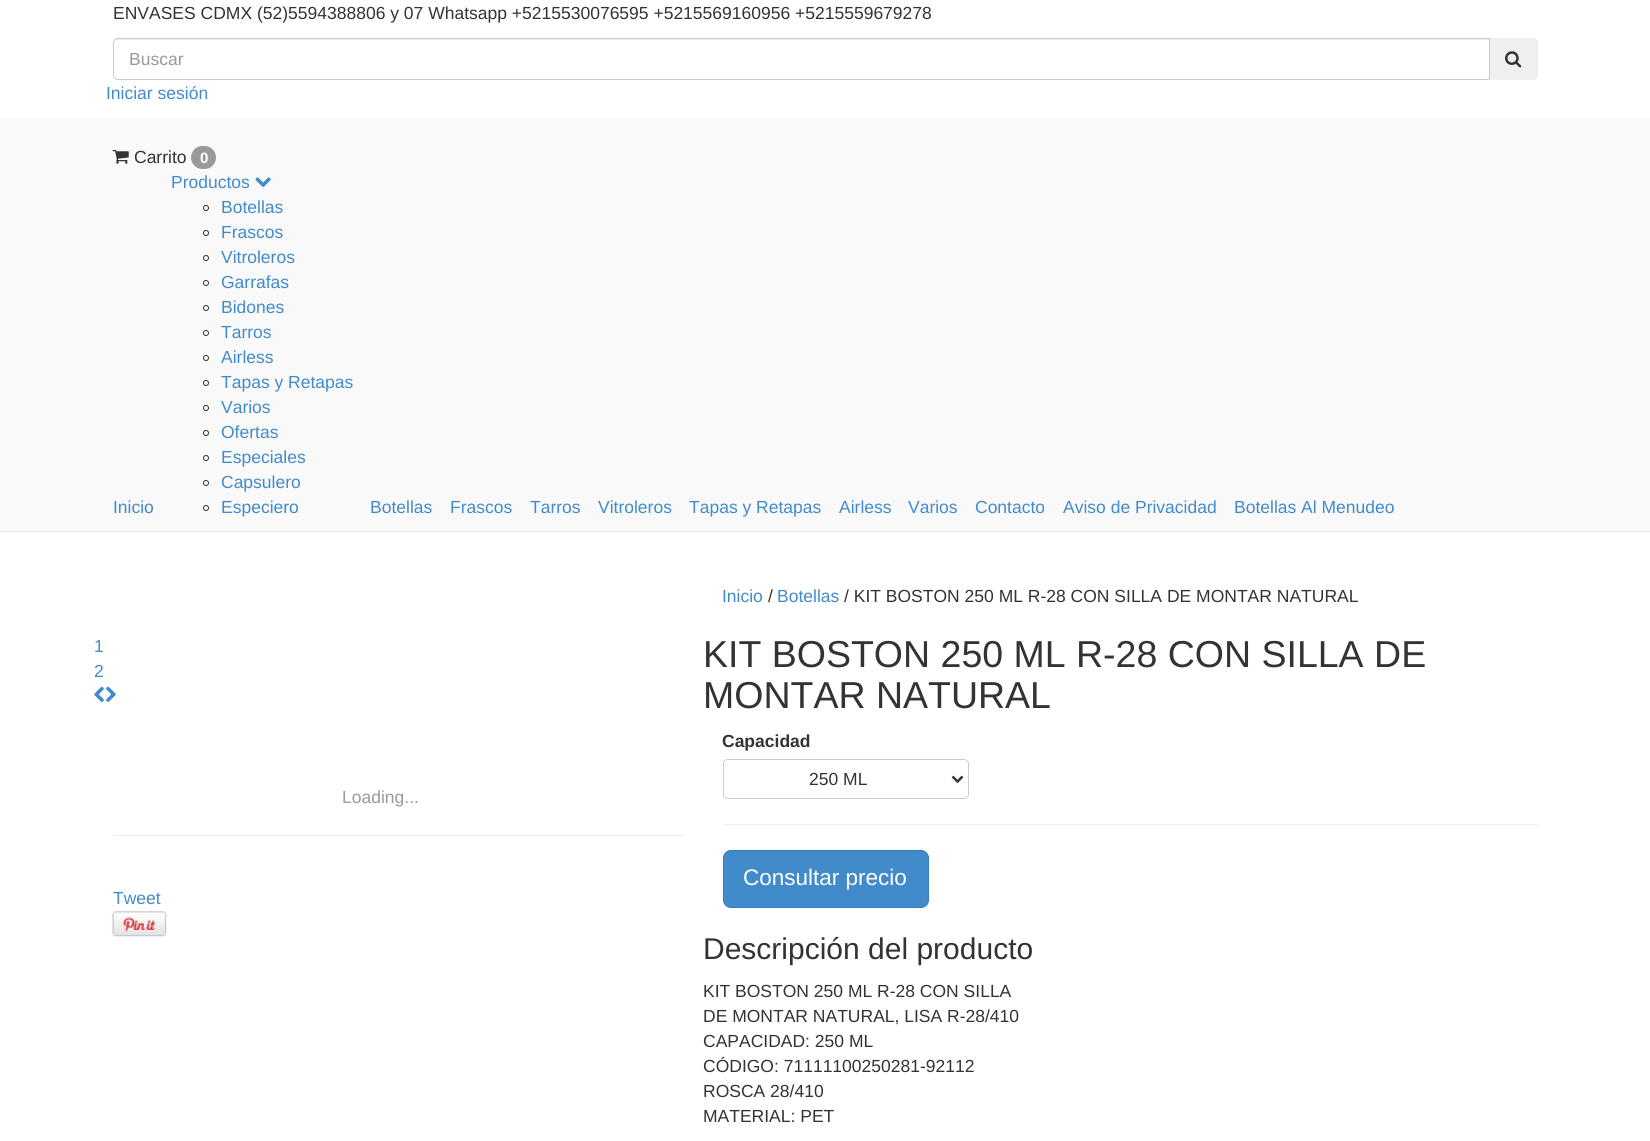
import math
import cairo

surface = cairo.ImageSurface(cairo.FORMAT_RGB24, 1650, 1141)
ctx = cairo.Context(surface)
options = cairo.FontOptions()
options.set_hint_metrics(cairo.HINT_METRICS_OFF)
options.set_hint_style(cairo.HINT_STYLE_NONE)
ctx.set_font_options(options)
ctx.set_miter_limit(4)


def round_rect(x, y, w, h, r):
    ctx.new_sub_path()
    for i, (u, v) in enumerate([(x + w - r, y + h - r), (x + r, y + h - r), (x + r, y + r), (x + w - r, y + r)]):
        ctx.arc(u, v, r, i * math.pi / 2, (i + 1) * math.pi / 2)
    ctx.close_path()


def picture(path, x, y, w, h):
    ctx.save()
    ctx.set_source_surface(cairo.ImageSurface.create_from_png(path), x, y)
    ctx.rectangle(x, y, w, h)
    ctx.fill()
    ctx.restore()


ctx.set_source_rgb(1, 1, 1)
ctx.paint()
ctx.select_font_face("Liberation Sans")
ctx.set_font_size(17.5)
ctx.set_source_rgb(0.2, 0.2, 0.2)
ctx.move_to(113, 19)
ctx.show_text("ENVASES CDMX (52)5594388806 y 07 Whatsapp +5215530076595 +5215569160956 +5215559679278")
ctx.set_source_rgb(0.937, 0.937, 0.937)
ctx.new_path()
ctx.move_to(1489, 38)
ctx.line_to(1533, 38)
ctx.curve_to(1536, 38, 1538, 40, 1538, 43)
ctx.line_to(1538, 75)
ctx.curve_to(1538, 78, 1536, 80, 1533, 80)
ctx.line_to(1489, 80)
ctx.close_path()
ctx.fill()
ctx.set_source_rgb(1, 1, 1)
ctx.new_path()
ctx.move_to(118, 38)
ctx.line_to(1490, 38)
ctx.line_to(1490, 80)
ctx.line_to(118, 80)
ctx.curve_to(115, 80, 113, 78, 113, 75)
ctx.line_to(113, 43)
ctx.curve_to(113, 40, 115, 38, 118, 38)
ctx.close_path()
ctx.fill()
ctx.set_source_rgb(0.925, 0.925, 0.925)
ctx.new_path()
ctx.move_to(118, 40)
ctx.line_to(1489, 40)
ctx.line_to(1489, 39)
ctx.line_to(118, 39)
ctx.curve_to(115, 39, 114, 41, 114, 44)
ctx.curve_to(114, 42, 115, 40, 118, 40)
ctx.close_path()
ctx.fill()
ctx.new_path()
ctx.move_to(118, 38.5)
ctx.line_to(1489.5, 38.5)
ctx.line_to(1489.5, 79.5)
ctx.line_to(118, 79.5)
ctx.curve_to(115.5, 79.5, 113.5, 77.5, 113.5, 75)
ctx.line_to(113.5, 43)
ctx.curve_to(113.5, 40.5, 115.5, 38.5, 118, 38.5)
ctx.close_path()
ctx.set_source_rgb(0.8, 0.8, 0.8)
ctx.set_line_width(1)
ctx.stroke()
ctx.set_source_rgb(0.6, 0.6, 0.6)
ctx.move_to(129, 65)
ctx.show_text("Buscar")
picture("img1.png", 1505, 51, 17, 17)
ctx.set_source_rgb(0.259, 0.545, 0.792)
ctx.move_to(106, 99)
ctx.show_text("Iniciar sesión")
ctx.set_source_rgb(0.973, 0.973, 0.973)
ctx.rectangle(0, 118, 1650, 413)
ctx.fill()
ctx.set_source_rgb(0.906, 0.906, 0.906)
ctx.rectangle(0, 531, 1650, 1)
ctx.fill()
picture("img2.png", 112, 150, 17, 14)
ctx.set_source_rgb(0.2, 0.2, 0.2)
ctx.move_to(134, 163)
ctx.show_text("Carrito")
ctx.set_source_rgb(0.6, 0.6, 0.6)
round_rect(191, 146, 25, 23, 11.5)
ctx.fill()
ctx.select_font_face("Liberation Sans", cairo.FONT_SLANT_NORMAL, cairo.FONT_WEIGHT_BOLD)
ctx.set_font_size(15)
ctx.set_source_rgb(1, 1, 1)
ctx.move_to(200, 163)
ctx.show_text("0")
ctx.select_font_face("Liberation Sans")
ctx.set_font_size(17.5)
ctx.set_source_rgb(0.259, 0.545, 0.792)
ctx.move_to(113, 513)
ctx.show_text("Inicio")
ctx.move_to(171, 188)
ctx.show_text("Productos")
picture("img3.png", 255, 177, 16, 10)
ctx.arc(206, 208, 2.5, 0, 2 * math.pi)
ctx.set_source_rgb(0.2, 0.2, 0.2)
ctx.stroke()
ctx.set_source_rgb(0.259, 0.545, 0.792)
ctx.move_to(221, 213)
ctx.show_text("Botellas")
ctx.new_path()
ctx.arc(206, 233, 2.5, 0, 2 * math.pi)
ctx.set_source_rgb(0.2, 0.2, 0.2)
ctx.stroke()
ctx.set_source_rgb(0.259, 0.545, 0.792)
ctx.move_to(221, 238)
ctx.show_text("Frascos")
ctx.new_path()
ctx.arc(206, 258, 2.5, 0, 2 * math.pi)
ctx.set_source_rgb(0.2, 0.2, 0.2)
ctx.stroke()
ctx.set_source_rgb(0.259, 0.545, 0.792)
ctx.move_to(221, 263)
ctx.show_text("Vitroleros")
ctx.new_path()
ctx.arc(206, 283, 2.5, 0, 2 * math.pi)
ctx.set_source_rgb(0.2, 0.2, 0.2)
ctx.stroke()
ctx.set_source_rgb(0.259, 0.545, 0.792)
ctx.move_to(221, 288)
ctx.show_text("Garrafas")
ctx.new_path()
ctx.arc(206, 308, 2.5, 0, 2 * math.pi)
ctx.set_source_rgb(0.2, 0.2, 0.2)
ctx.stroke()
ctx.set_source_rgb(0.259, 0.545, 0.792)
ctx.move_to(221, 313)
ctx.show_text("Bidones")
ctx.new_path()
ctx.arc(206, 333, 2.5, 0, 2 * math.pi)
ctx.set_source_rgb(0.2, 0.2, 0.2)
ctx.stroke()
ctx.set_source_rgb(0.259, 0.545, 0.792)
ctx.move_to(221, 338)
ctx.show_text("Tarros")
ctx.new_path()
ctx.arc(206, 358, 2.5, 0, 2 * math.pi)
ctx.set_source_rgb(0.2, 0.2, 0.2)
ctx.stroke()
ctx.set_source_rgb(0.259, 0.545, 0.792)
ctx.move_to(221, 363)
ctx.show_text("Airless")
ctx.new_path()
ctx.arc(206, 383, 2.5, 0, 2 * math.pi)
ctx.set_source_rgb(0.2, 0.2, 0.2)
ctx.stroke()
ctx.set_source_rgb(0.259, 0.545, 0.792)
ctx.move_to(221, 388)
ctx.show_text("Tapas y Retapas")
ctx.new_path()
ctx.arc(206, 408, 2.5, 0, 2 * math.pi)
ctx.set_source_rgb(0.2, 0.2, 0.2)
ctx.stroke()
ctx.set_source_rgb(0.259, 0.545, 0.792)
ctx.move_to(221, 413)
ctx.show_text("Varios")
ctx.new_path()
ctx.arc(206, 433, 2.5, 0, 2 * math.pi)
ctx.set_source_rgb(0.2, 0.2, 0.2)
ctx.stroke()
ctx.set_source_rgb(0.259, 0.545, 0.792)
ctx.move_to(221, 438)
ctx.show_text("Ofertas")
ctx.new_path()
ctx.arc(206, 458, 2.5, 0, 2 * math.pi)
ctx.set_source_rgb(0.2, 0.2, 0.2)
ctx.stroke()
ctx.set_source_rgb(0.259, 0.545, 0.792)
ctx.move_to(221, 463)
ctx.show_text("Especiales")
ctx.new_path()
ctx.arc(206, 483, 2.5, 0, 2 * math.pi)
ctx.set_source_rgb(0.2, 0.2, 0.2)
ctx.stroke()
ctx.set_source_rgb(0.259, 0.545, 0.792)
ctx.move_to(221, 488)
ctx.show_text("Capsulero")
ctx.new_path()
ctx.arc(206, 508, 2.5, 0, 2 * math.pi)
ctx.set_source_rgb(0.2, 0.2, 0.2)
ctx.stroke()
ctx.set_source_rgb(0.259, 0.545, 0.792)
ctx.move_to(221, 513)
ctx.show_text("Especiero")
ctx.move_to(370, 513)
ctx.show_text("Botellas")
ctx.move_to(450, 513)
ctx.show_text("Frascos")
ctx.move_to(530, 513)
ctx.show_text("Tarros")
ctx.move_to(598, 513)
ctx.show_text("Vitroleros")
ctx.move_to(689, 513)
ctx.show_text("Tapas y Retapas")
ctx.move_to(839, 513)
ctx.show_text("Airless")
ctx.move_to(908, 513)
ctx.show_text("Varios")
ctx.move_to(975, 513)
ctx.show_text("Contacto")
ctx.move_to(1063, 513)
ctx.show_text("Aviso de Privacidad")
ctx.move_to(1234, 513)
ctx.show_text("Botellas Al Menudeo")
ctx.move_to(94, 652)
ctx.show_text("1")
ctx.move_to(94, 677)
ctx.show_text("2")
picture("img4.png", 94, 686, 10, 16)
picture("img5.png", 106, 686, 10, 16)
ctx.set_source_rgb(0.6, 0.6, 0.6)
ctx.move_to(342, 803)
ctx.show_text("Loading...")
ctx.set_source_rgb(0.933, 0.933, 0.933)
ctx.rectangle(113, 835, 572, 1)
ctx.fill()
ctx.set_source_rgb(0.259, 0.545, 0.792)
ctx.move_to(113, 904)
ctx.show_text("Tweet")
picture("img6.png", 112, 911, 55, 26)
ctx.move_to(722, 602)
ctx.show_text("Inicio")
ctx.set_source_rgb(0.2, 0.2, 0.2)
ctx.move_to(768, 602)
ctx.show_text("/")
ctx.set_source_rgb(0.259, 0.545, 0.792)
ctx.move_to(777, 602)
ctx.show_text("Botellas")
ctx.set_source_rgb(0.2, 0.2, 0.2)
ctx.move_to(844, 602)
ctx.show_text("/ KIT BOSTON 250 ML R-28 CON SILLA DE MONTAR NATURAL")
ctx.set_font_size(37.5)
ctx.move_to(703, 667)
ctx.show_text("KIT BOSTON 250 ML R-28 CON SILLA DE")
ctx.move_to(703, 708)
ctx.show_text("MONTAR NATURAL")
ctx.select_font_face("Liberation Sans", cairo.FONT_SLANT_NORMAL, cairo.FONT_WEIGHT_BOLD)
ctx.set_font_size(17.5)
ctx.move_to(722, 747)
ctx.show_text("Capacidad")
round_rect(723.5, 759.5, 245, 39, 4.5)
ctx.set_source_rgb(0.8, 0.8, 0.8)
ctx.stroke()
ctx.new_path()
ctx.move_to(952.5, 776.5)
ctx.line_to(957.5, 781.5)
ctx.line_to(962.5, 776.5)
ctx.set_source_rgb(0.2, 0.2, 0.2)
ctx.set_line_width(2.5)
ctx.stroke()
ctx.select_font_face("Liberation Sans")
ctx.move_to(809, 785)
ctx.show_text("250 ML")
ctx.set_source_rgb(0.933, 0.933, 0.933)
ctx.rectangle(723, 824, 815, 1)
ctx.fill()
ctx.set_source_rgb(0.259, 0.545, 0.792)
round_rect(723.5, 850.5, 205, 57, 7.5)
ctx.fill_preserve()
ctx.set_source_rgb(0.208, 0.494, 0.741)
ctx.set_line_width(1)
ctx.stroke()
ctx.set_font_size(22.5)
ctx.set_source_rgb(1, 1, 1)
ctx.move_to(743, 885)
ctx.show_text("Consultar precio")
ctx.set_font_size(30)
ctx.set_source_rgb(0.2, 0.2, 0.2)
ctx.move_to(703, 959)
ctx.show_text("Descripción del producto")
ctx.set_font_size(17.5)
ctx.move_to(703, 997)
ctx.show_text("KIT BOSTON 250 ML R-28 CON SILLA")
ctx.move_to(703, 1022)
ctx.show_text("DE MONTAR NATURAL, LISA R-28/410")
ctx.move_to(703, 1047)
ctx.show_text("CAPACIDAD: 250 ML")
ctx.move_to(703, 1072)
ctx.show_text("CÓDIGO: 71111100250281-92112")
ctx.move_to(703, 1097)
ctx.show_text("ROSCA 28/410")
ctx.move_to(703, 1122)
ctx.show_text("MATERIAL: PET")
surface.write_to_png("page.png")
